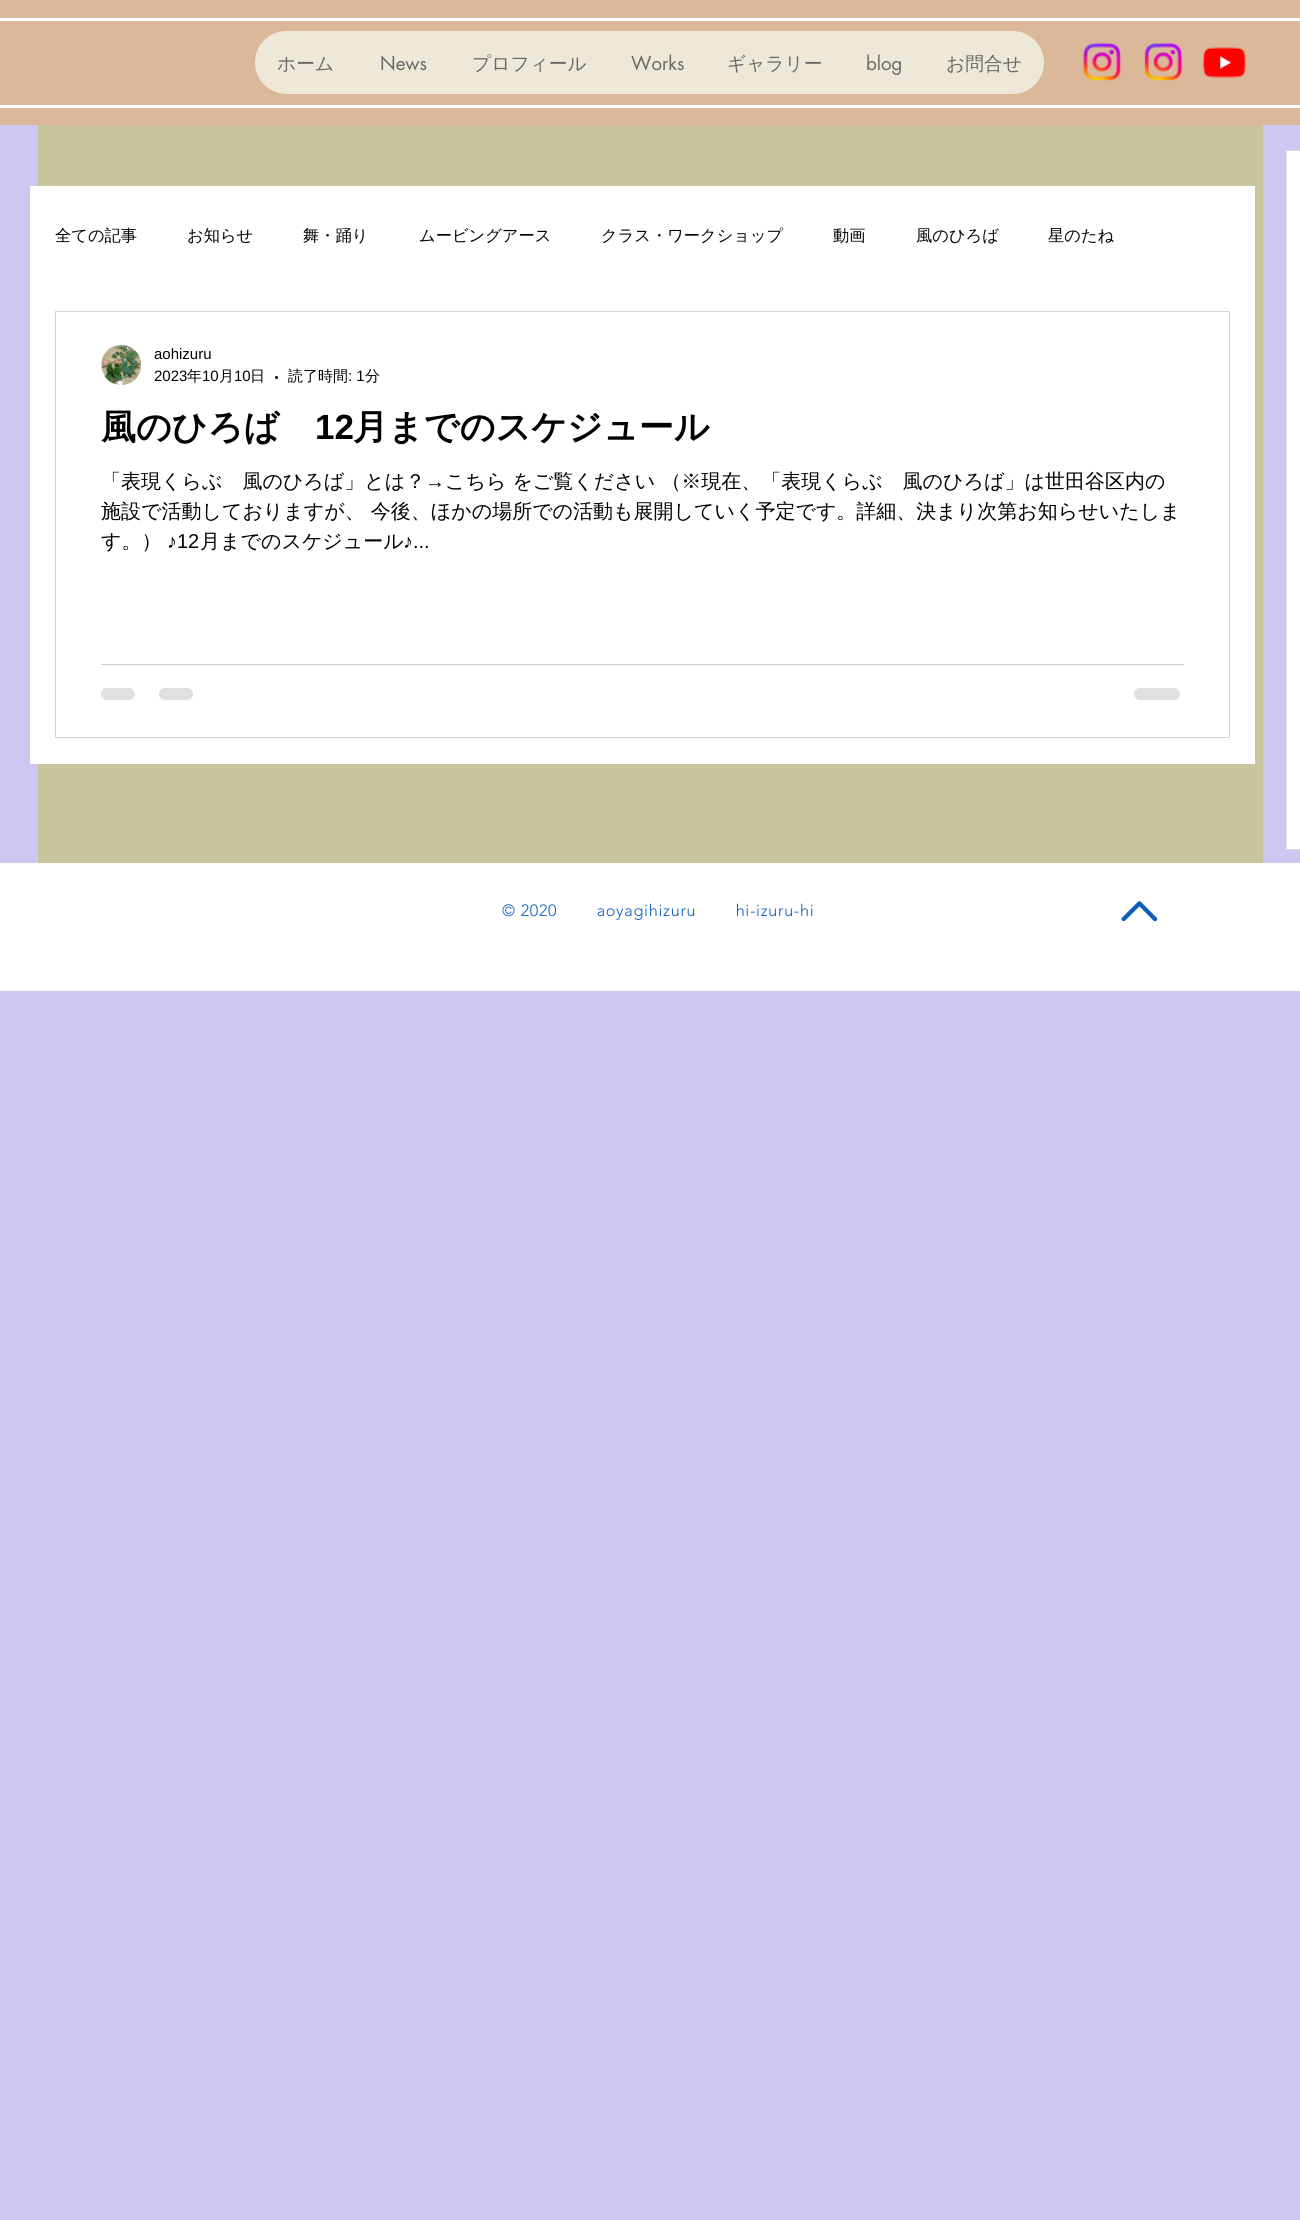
import math
import cairo

surface = cairo.ImageSurface(cairo.FORMAT_RGB24, 1300, 2220)
ctx = cairo.Context(surface)
options = cairo.FontOptions()
options.set_hint_metrics(cairo.HINT_METRICS_OFF)
options.set_hint_style(cairo.HINT_STYLE_NONE)
ctx.set_font_options(options)
ctx.set_miter_limit(4)


def spaced_text(x, y, s, letter, word):
    ctx.move_to(x, y)
    for ch in s:
        ctx.show_text(ch)
        ctx.rel_move_to(letter + word * (ch == ' '), 0)


def round_rect(x, y, w, h, r):
    ctx.new_sub_path()
    for i, (u, v) in enumerate([(x + w - r, y + h - r), (x + r, y + h - r), (x + r, y + r), (x + w - r, y + r)]):
        ctx.arc(u, v, r, i * math.pi / 2, (i + 1) * math.pi / 2)
    ctx.close_path()


def picture(path, x, y, w, h):
    ctx.save()
    ctx.set_source_surface(cairo.ImageSurface.create_from_png(path), x, y)
    ctx.rectangle(x, y, w, h)
    ctx.fill()
    ctx.restore()


ctx.set_source_rgb(0.812, 0.78, 0.949)
ctx.paint()
ctx.set_source_rgb(0.859, 0.722, 0.604)
ctx.rectangle(0, 0, 1300, 125)
ctx.fill()
ctx.set_source_rgb(1, 1, 1)
ctx.rectangle(0, 18, 1300, 3)
ctx.fill()
ctx.rectangle(0, 105, 1300, 3)
ctx.fill()
ctx.set_source_rgb(0.933, 0.91, 0.847)
round_rect(255, 31, 789, 63, 31.5)
ctx.fill()
ctx.select_font_face("WenQuanYi Zen Hei Medium")
ctx.set_font_size(18.75)
ctx.set_source_rgb(0.412, 0.412, 0.412)
ctx.move_to(277, 70)
ctx.show_text("ホーム")
ctx.select_font_face("futura")
ctx.move_to(380, 70)
ctx.show_text("News")
ctx.select_font_face("WenQuanYi Zen Hei Medium")
ctx.move_to(472, 70)
ctx.show_text("プロフィール")
ctx.select_font_face("futura")
ctx.move_to(631, 70)
ctx.show_text("Works")
ctx.select_font_face("WenQuanYi Zen Hei Medium")
ctx.move_to(727, 70)
ctx.show_text("ギャラリー")
ctx.select_font_face("futura")
ctx.move_to(866, 70)
ctx.show_text("blog")
ctx.select_font_face("WenQuanYi Zen Hei Medium")
ctx.move_to(946, 70)
ctx.show_text("お問合せ")
picture("img1.png", 1082, 42, 40, 39)
picture("img2.png", 1144, 42, 39, 39)
picture("img3.png", 1202, 47, 44, 31)
ctx.set_source_rgb(0.784, 0.769, 0.608)
ctx.rectangle(38, 125, 1225, 738)
ctx.fill()
ctx.set_source_rgb(1, 1, 1)
ctx.rectangle(30, 186, 1225, 578)
ctx.fill()
ctx.set_font_size(16.25)
ctx.set_source_rgb(0, 0, 0)
ctx.move_to(55, 241)
ctx.show_text("全ての記事")
ctx.move_to(187, 241)
ctx.show_text("お知らせ")
ctx.move_to(303, 241)
ctx.show_text("舞・踊り")
ctx.move_to(419, 241)
ctx.show_text("ムービングアース")
ctx.move_to(601, 241)
ctx.show_text("クラス・ワークショップ")
ctx.move_to(833, 241)
ctx.show_text("動画")
ctx.move_to(916, 241)
ctx.show_text("風のひろば")
ctx.move_to(1048, 241)
ctx.show_text("星のたね")
ctx.rectangle(55.5, 311.5, 1174, 426)
ctx.set_source_rgb(0.831, 0.831, 0.831)
ctx.set_line_width(1)
ctx.stroke()
picture("img4.png", 101, 345, 41, 40)
ctx.select_font_face("Liberation Sans")
ctx.set_font_size(15)
ctx.set_source_rgb(0, 0, 0)
ctx.move_to(154, 359)
ctx.show_text("aohizuru")
ctx.move_to(154, 381)
ctx.show_text("2023")
ctx.select_font_face("WenQuanYi Zen Hei Medium")
ctx.move_to(187, 381)
ctx.show_text("年")
ctx.select_font_face("Liberation Sans")
ctx.move_to(202, 381)
ctx.show_text("10")
ctx.select_font_face("WenQuanYi Zen Hei Medium")
ctx.move_to(219, 381)
ctx.show_text("月")
ctx.select_font_face("Liberation Sans")
ctx.move_to(234, 381)
ctx.show_text("10")
ctx.select_font_face("WenQuanYi Zen Hei Medium")
ctx.move_to(250, 381)
ctx.show_text("日")
ctx.new_path()
ctx.arc(276.5, 377.5, 1.5, 0, 2 * math.pi)
ctx.fill()
ctx.move_to(288, 381)
ctx.show_text("読了時間")
ctx.select_font_face("Liberation Sans")
ctx.move_to(348, 381)
ctx.show_text(": 1")
ctx.select_font_face("WenQuanYi Zen Hei Medium")
ctx.move_to(365, 381)
ctx.show_text("分")
ctx.select_font_face("WenQuanYi Zen Hei", cairo.FONT_SLANT_NORMAL, cairo.FONT_WEIGHT_BOLD)
ctx.set_font_size(35)
ctx.move_to(101, 439)
ctx.show_text("風のひろば")
ctx.select_font_face("Liberation Sans", cairo.FONT_SLANT_NORMAL, cairo.FONT_WEIGHT_BOLD)
ctx.move_to(315, 439)
ctx.show_text("12")
ctx.select_font_face("WenQuanYi Zen Hei", cairo.FONT_SLANT_NORMAL, cairo.FONT_WEIGHT_BOLD)
ctx.move_to(353, 439)
ctx.show_text("月までのスケジュール")
ctx.select_font_face("WenQuanYi Zen Hei Medium")
ctx.set_font_size(20)
ctx.move_to(101, 488)
ctx.show_text("「表現くらぶ　風のひろば」とは？")
ctx.select_font_face("Liberation Sans")
ctx.move_to(425, 488)
ctx.show_text("→")
ctx.select_font_face("WenQuanYi Zen Hei Medium")
ctx.move_to(445, 488)
ctx.show_text("こちら をご覧ください （※現在、「表現くらぶ　風のひろば」は世田谷区内の")
ctx.move_to(101, 518)
ctx.show_text("施設で活動しておりますが、 今後、ほかの場所での活動も展開していく予定です。詳細、決まり次第お知らせいたしま")
ctx.move_to(101, 548)
ctx.show_text("す。）")
ctx.select_font_face("Liberation Sans")
ctx.move_to(167, 548)
ctx.show_text("♪12")
ctx.select_font_face("WenQuanYi Zen Hei Medium")
ctx.move_to(200, 548)
ctx.show_text("月までのスケジュール")
ctx.select_font_face("Liberation Sans")
ctx.move_to(403, 548)
ctx.show_text("♪...")
ctx.set_source_rgb(0.8, 0.8, 0.8)
ctx.rectangle(101, 664, 1083, 1)
ctx.fill()
ctx.set_source_rgb(0.878, 0.878, 0.878)
round_rect(101, 688, 34, 12, 6)
ctx.fill()
round_rect(159, 688, 34, 12, 6)
ctx.fill()
round_rect(1134, 688, 46, 12, 6)
ctx.fill()
ctx.set_source_rgb(1, 1, 1)
ctx.rectangle(1286.5, 150.5, 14, 699)
ctx.fill_preserve()
ctx.set_source_rgb(0.875, 0.875, 0.875)
ctx.stroke()
ctx.set_source_rgb(1, 1, 1)
ctx.rectangle(0, 863, 1300, 128)
ctx.fill()
ctx.select_font_face("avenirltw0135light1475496 Light")
ctx.set_font_size(16.25)
ctx.set_source_rgb(0.051, 0.369, 0.729)
spaced_text(502, 916, "© 2020        aoyagihizuru        hi-izuru-hi", 0.7, 0)
picture("img5.png", 1121, 901, 37, 21)
surface.write_to_png("page.png")
